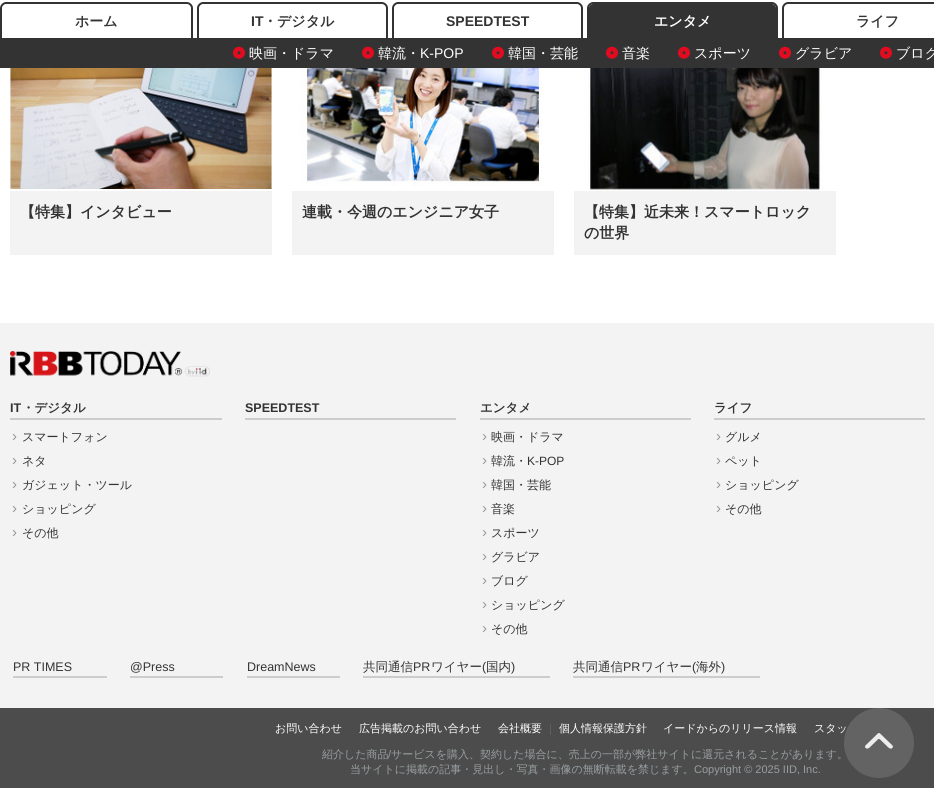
import math
import cairo

surface = cairo.ImageSurface(cairo.FORMAT_RGB24, 934, 788)
ctx = cairo.Context(surface)
options = cairo.FontOptions()
options.set_hint_metrics(cairo.HINT_METRICS_OFF)
options.set_hint_style(cairo.HINT_STYLE_NONE)
ctx.set_font_options(options)
ctx.set_miter_limit(4)


def picture(path, x, y, w, h):
    ctx.save()
    ctx.set_source_surface(cairo.ImageSurface.create_from_png(path), x, y)
    ctx.rectangle(x, y, w, h)
    ctx.fill()
    ctx.restore()


ctx.set_source_rgb(1, 1, 1)
ctx.paint()
ctx.set_source_rgb(0.2, 0.2, 0.2)
ctx.rectangle(0, 38, 934, 30)
ctx.fill()
ctx.new_path()
ctx.move_to(593, 4)
ctx.line_to(772, 4)
ctx.curve_to(774, 4, 776, 6, 776, 8)
ctx.line_to(776, 38)
ctx.line_to(589, 38)
ctx.line_to(589, 8)
ctx.curve_to(589, 6, 591, 4, 593, 4)
ctx.close_path()
ctx.fill()
ctx.set_fill_rule(cairo.FILL_RULE_EVEN_ODD)
ctx.new_path()
ctx.move_to(593, 2)
ctx.line_to(772, 2)
ctx.curve_to(775, 2, 778, 5, 778, 8)
ctx.line_to(778, 38)
ctx.line_to(587, 38)
ctx.line_to(587, 8)
ctx.curve_to(587, 5, 590, 2, 593, 2)
ctx.close_path()
ctx.move_to(593, 4)
ctx.line_to(772, 4)
ctx.curve_to(774, 4, 776, 6, 776, 8)
ctx.line_to(776, 38)
ctx.line_to(589, 38)
ctx.line_to(589, 8)
ctx.curve_to(589, 6, 591, 4, 593, 4)
ctx.close_path()
ctx.fill()
ctx.select_font_face("WenQuanYi Zen Hei", cairo.FONT_SLANT_NORMAL, cairo.FONT_WEIGHT_BOLD)
ctx.set_font_size(14)
ctx.set_source_rgb(1, 1, 1)
ctx.move_to(654, 26)
ctx.show_text("エンタメ")
picture("img1.png", 233, 46, 12, 13)
ctx.select_font_face("WenQuanYi Zen Hei Medium")
ctx.move_to(249, 58)
ctx.show_text("映画・ドラマ")
picture("img1.png", 362, 46, 12, 13)
ctx.move_to(378, 58)
ctx.show_text("韓流・")
ctx.select_font_face("Liberation Sans")
ctx.move_to(420, 58)
ctx.show_text("K-POP")
picture("img1.png", 492, 46, 12, 13)
ctx.select_font_face("WenQuanYi Zen Hei Medium")
ctx.move_to(508, 58)
ctx.show_text("韓国・芸能")
picture("img1.png", 606, 46, 12, 13)
ctx.move_to(622, 58)
ctx.show_text("音楽")
picture("img1.png", 678, 46, 12, 13)
ctx.move_to(694, 58)
ctx.show_text("スポーツ")
picture("img1.png", 779, 46, 12, 13)
ctx.move_to(795, 58)
ctx.show_text("グラビア")
picture("img1.png", 880, 46, 12, 13)
ctx.move_to(896, 58)
ctx.show_text("ブログ")
ctx.set_source_rgb(0.2, 0.2, 0.2)
ctx.new_path()
ctx.move_to(6, 2)
ctx.line_to(187, 2)
ctx.curve_to(190, 2, 193, 5, 193, 8)
ctx.line_to(193, 38)
ctx.line_to(0, 38)
ctx.line_to(0, 8)
ctx.curve_to(0, 5, 3, 2, 6, 2)
ctx.close_path()
ctx.move_to(6, 4)
ctx.line_to(187, 4)
ctx.curve_to(189, 4, 191, 6, 191, 8)
ctx.line_to(191, 38)
ctx.line_to(2, 38)
ctx.line_to(2, 8)
ctx.curve_to(2, 6, 4, 4, 6, 4)
ctx.close_path()
ctx.fill()
ctx.select_font_face("WenQuanYi Zen Hei", cairo.FONT_SLANT_NORMAL, cairo.FONT_WEIGHT_BOLD)
ctx.move_to(75, 26)
ctx.show_text("ホーム")
ctx.new_path()
ctx.move_to(203, 2)
ctx.line_to(382, 2)
ctx.curve_to(385, 2, 388, 5, 388, 8)
ctx.line_to(388, 38)
ctx.line_to(197, 38)
ctx.line_to(197, 8)
ctx.curve_to(197, 5, 200, 2, 203, 2)
ctx.close_path()
ctx.move_to(203, 4)
ctx.line_to(382, 4)
ctx.curve_to(384, 4, 386, 6, 386, 8)
ctx.line_to(386, 38)
ctx.line_to(199, 38)
ctx.line_to(199, 8)
ctx.curve_to(199, 6, 201, 4, 203, 4)
ctx.close_path()
ctx.fill()
ctx.select_font_face("Liberation Sans", cairo.FONT_SLANT_NORMAL, cairo.FONT_WEIGHT_BOLD)
ctx.move_to(251, 26)
ctx.show_text("IT")
ctx.select_font_face("WenQuanYi Zen Hei", cairo.FONT_SLANT_NORMAL, cairo.FONT_WEIGHT_BOLD)
ctx.move_to(263, 26)
ctx.show_text("・デジタル")
ctx.new_path()
ctx.move_to(398, 2)
ctx.line_to(577, 2)
ctx.curve_to(580, 2, 583, 5, 583, 8)
ctx.line_to(583, 38)
ctx.line_to(392, 38)
ctx.line_to(392, 8)
ctx.curve_to(392, 5, 395, 2, 398, 2)
ctx.close_path()
ctx.move_to(398, 4)
ctx.line_to(577, 4)
ctx.curve_to(579, 4, 581, 6, 581, 8)
ctx.line_to(581, 38)
ctx.line_to(394, 38)
ctx.line_to(394, 8)
ctx.curve_to(394, 6, 396, 4, 398, 4)
ctx.close_path()
ctx.fill()
ctx.select_font_face("Liberation Sans", cairo.FONT_SLANT_NORMAL, cairo.FONT_WEIGHT_BOLD)
ctx.move_to(446, 26)
ctx.show_text("SPEEDTEST")
ctx.new_path()
ctx.move_to(788, 2)
ctx.line_to(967, 2)
ctx.curve_to(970, 2, 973, 5, 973, 8)
ctx.line_to(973, 38)
ctx.line_to(782, 38)
ctx.line_to(782, 8)
ctx.curve_to(782, 5, 785, 2, 788, 2)
ctx.close_path()
ctx.move_to(788, 4)
ctx.line_to(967, 4)
ctx.curve_to(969, 4, 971, 6, 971, 8)
ctx.line_to(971, 38)
ctx.line_to(784, 38)
ctx.line_to(784, 8)
ctx.curve_to(784, 6, 786, 4, 788, 4)
ctx.close_path()
ctx.fill()
ctx.select_font_face("WenQuanYi Zen Hei", cairo.FONT_SLANT_NORMAL, cairo.FONT_WEIGHT_BOLD)
ctx.move_to(856, 26)
ctx.show_text("ライフ")
ctx.set_source_rgb(0.953, 0.953, 0.953)
ctx.rectangle(10, 191, 262, 64)
ctx.fill()
picture("img2.png", 10, 68, 262, 123)
ctx.set_font_size(15)
ctx.set_source_rgb(0.2, 0.2, 0.2)
ctx.move_to(20, 217)
ctx.show_text("【特集】インタビュー")
ctx.set_source_rgb(0.953, 0.953, 0.953)
ctx.rectangle(292, 191, 262, 64)
ctx.fill()
picture("img3.png", 292, 68, 262, 123)
ctx.set_source_rgb(0.2, 0.2, 0.2)
ctx.move_to(302, 217)
ctx.show_text("連載・今週のエンジニア女子")
ctx.set_source_rgb(0.953, 0.953, 0.953)
ctx.rectangle(574, 191, 262, 64)
ctx.fill()
picture("img4.png", 574, 68, 262, 123)
picture("img5.png", 590, 68, 230, 122)
ctx.set_source_rgb(0.2, 0.2, 0.2)
ctx.move_to(584, 217)
ctx.show_text("【特集】近未来！スマートロック")
ctx.move_to(584, 238)
ctx.show_text("の世界")
ctx.set_source_rgb(0.953, 0.953, 0.953)
ctx.rectangle(0, 323, 934, 385)
ctx.fill()
picture("img6.png", 10, 351, 200, 26)
ctx.set_source_rgb(0.8, 0.8, 0.8)
ctx.rectangle(10, 418, 212, 2)
ctx.fill()
ctx.select_font_face("Liberation Sans", cairo.FONT_SLANT_NORMAL, cairo.FONT_WEIGHT_BOLD)
ctx.set_font_size(12.5)
ctx.set_source_rgb(0.2, 0.2, 0.2)
ctx.move_to(10, 412)
ctx.show_text("IT")
ctx.select_font_face("WenQuanYi Zen Hei", cairo.FONT_SLANT_NORMAL, cairo.FONT_WEIGHT_BOLD)
ctx.move_to(22, 412)
ctx.show_text("・デジタル")
ctx.select_font_face("Liberation Sans")
ctx.set_font_size(15)
ctx.set_source_rgb(0.6, 0.6, 0.6)
ctx.move_to(12, 441)
ctx.show_text("›")
ctx.select_font_face("WenQuanYi Zen Hei Medium")
ctx.set_font_size(12)
ctx.set_source_rgb(0.2, 0.2, 0.2)
ctx.move_to(22, 441)
ctx.show_text("スマートフォン")
ctx.select_font_face("Liberation Sans")
ctx.set_font_size(15)
ctx.set_source_rgb(0.6, 0.6, 0.6)
ctx.move_to(12, 465)
ctx.show_text("›")
ctx.select_font_face("WenQuanYi Zen Hei Medium")
ctx.set_font_size(12)
ctx.set_source_rgb(0.2, 0.2, 0.2)
ctx.move_to(22, 465)
ctx.show_text("ネタ")
ctx.select_font_face("Liberation Sans")
ctx.set_font_size(15)
ctx.set_source_rgb(0.6, 0.6, 0.6)
ctx.move_to(12, 489)
ctx.show_text("›")
ctx.select_font_face("WenQuanYi Zen Hei Medium")
ctx.set_font_size(12)
ctx.set_source_rgb(0.2, 0.2, 0.2)
ctx.move_to(22, 489)
ctx.show_text("ガジェット・ツール")
ctx.select_font_face("Liberation Sans")
ctx.set_font_size(15)
ctx.set_source_rgb(0.6, 0.6, 0.6)
ctx.move_to(12, 513)
ctx.show_text("›")
ctx.select_font_face("WenQuanYi Zen Hei Medium")
ctx.set_font_size(12)
ctx.set_source_rgb(0.2, 0.2, 0.2)
ctx.move_to(22, 513)
ctx.show_text("ショッピング")
ctx.select_font_face("Liberation Sans")
ctx.set_font_size(15)
ctx.set_source_rgb(0.6, 0.6, 0.6)
ctx.move_to(12, 537)
ctx.show_text("›")
ctx.select_font_face("WenQuanYi Zen Hei Medium")
ctx.set_font_size(12)
ctx.set_source_rgb(0.2, 0.2, 0.2)
ctx.move_to(22, 537)
ctx.show_text("その他")
ctx.set_source_rgb(0.8, 0.8, 0.8)
ctx.rectangle(245, 418, 211, 2)
ctx.fill()
ctx.select_font_face("Liberation Sans", cairo.FONT_SLANT_NORMAL, cairo.FONT_WEIGHT_BOLD)
ctx.set_font_size(12.5)
ctx.set_source_rgb(0.2, 0.2, 0.2)
ctx.move_to(245, 412)
ctx.show_text("SPEEDTEST")
ctx.set_source_rgb(0.8, 0.8, 0.8)
ctx.rectangle(480, 418, 211, 2)
ctx.fill()
ctx.select_font_face("WenQuanYi Zen Hei", cairo.FONT_SLANT_NORMAL, cairo.FONT_WEIGHT_BOLD)
ctx.set_source_rgb(0.2, 0.2, 0.2)
ctx.move_to(480, 412)
ctx.show_text("エンタメ")
ctx.select_font_face("Liberation Sans")
ctx.set_font_size(15)
ctx.set_source_rgb(0.6, 0.6, 0.6)
ctx.move_to(482, 441)
ctx.show_text("›")
ctx.select_font_face("WenQuanYi Zen Hei Medium")
ctx.set_font_size(12)
ctx.set_source_rgb(0.2, 0.2, 0.2)
ctx.move_to(491, 441)
ctx.show_text("映画・ドラマ")
ctx.select_font_face("Liberation Sans")
ctx.set_font_size(15)
ctx.set_source_rgb(0.6, 0.6, 0.6)
ctx.move_to(482, 465)
ctx.show_text("›")
ctx.select_font_face("WenQuanYi Zen Hei Medium")
ctx.set_font_size(12)
ctx.set_source_rgb(0.2, 0.2, 0.2)
ctx.move_to(491, 465)
ctx.show_text("韓流・")
ctx.select_font_face("Liberation Sans")
ctx.move_to(527, 465)
ctx.show_text("K-POP")
ctx.set_font_size(15)
ctx.set_source_rgb(0.6, 0.6, 0.6)
ctx.move_to(482, 489)
ctx.show_text("›")
ctx.select_font_face("WenQuanYi Zen Hei Medium")
ctx.set_font_size(12)
ctx.set_source_rgb(0.2, 0.2, 0.2)
ctx.move_to(491, 489)
ctx.show_text("韓国・芸能")
ctx.select_font_face("Liberation Sans")
ctx.set_font_size(15)
ctx.set_source_rgb(0.6, 0.6, 0.6)
ctx.move_to(482, 513)
ctx.show_text("›")
ctx.select_font_face("WenQuanYi Zen Hei Medium")
ctx.set_font_size(12)
ctx.set_source_rgb(0.2, 0.2, 0.2)
ctx.move_to(491, 513)
ctx.show_text("音楽")
ctx.select_font_face("Liberation Sans")
ctx.set_font_size(15)
ctx.set_source_rgb(0.6, 0.6, 0.6)
ctx.move_to(482, 537)
ctx.show_text("›")
ctx.select_font_face("WenQuanYi Zen Hei Medium")
ctx.set_font_size(12)
ctx.set_source_rgb(0.2, 0.2, 0.2)
ctx.move_to(491, 537)
ctx.show_text("スポーツ")
ctx.select_font_face("Liberation Sans")
ctx.set_font_size(15)
ctx.set_source_rgb(0.6, 0.6, 0.6)
ctx.move_to(482, 561)
ctx.show_text("›")
ctx.select_font_face("WenQuanYi Zen Hei Medium")
ctx.set_font_size(12)
ctx.set_source_rgb(0.2, 0.2, 0.2)
ctx.move_to(491, 561)
ctx.show_text("グラビア")
ctx.select_font_face("Liberation Sans")
ctx.set_font_size(15)
ctx.set_source_rgb(0.6, 0.6, 0.6)
ctx.move_to(482, 585)
ctx.show_text("›")
ctx.select_font_face("WenQuanYi Zen Hei Medium")
ctx.set_font_size(12)
ctx.set_source_rgb(0.2, 0.2, 0.2)
ctx.move_to(491, 585)
ctx.show_text("ブログ")
ctx.select_font_face("Liberation Sans")
ctx.set_font_size(15)
ctx.set_source_rgb(0.6, 0.6, 0.6)
ctx.move_to(482, 609)
ctx.show_text("›")
ctx.select_font_face("WenQuanYi Zen Hei Medium")
ctx.set_font_size(12)
ctx.set_source_rgb(0.2, 0.2, 0.2)
ctx.move_to(491, 609)
ctx.show_text("ショッピング")
ctx.select_font_face("Liberation Sans")
ctx.set_font_size(15)
ctx.set_source_rgb(0.6, 0.6, 0.6)
ctx.move_to(482, 633)
ctx.show_text("›")
ctx.select_font_face("WenQuanYi Zen Hei Medium")
ctx.set_font_size(12)
ctx.set_source_rgb(0.2, 0.2, 0.2)
ctx.move_to(491, 633)
ctx.show_text("その他")
ctx.set_source_rgb(0.8, 0.8, 0.8)
ctx.rectangle(714, 418, 211, 2)
ctx.fill()
ctx.select_font_face("WenQuanYi Zen Hei", cairo.FONT_SLANT_NORMAL, cairo.FONT_WEIGHT_BOLD)
ctx.set_font_size(12.5)
ctx.set_source_rgb(0.2, 0.2, 0.2)
ctx.move_to(714, 412)
ctx.show_text("ライフ")
ctx.select_font_face("Liberation Sans")
ctx.set_font_size(15)
ctx.set_source_rgb(0.6, 0.6, 0.6)
ctx.move_to(716, 441)
ctx.show_text("›")
ctx.select_font_face("WenQuanYi Zen Hei Medium")
ctx.set_font_size(12)
ctx.set_source_rgb(0.2, 0.2, 0.2)
ctx.move_to(725, 441)
ctx.show_text("グルメ")
ctx.select_font_face("Liberation Sans")
ctx.set_font_size(15)
ctx.set_source_rgb(0.6, 0.6, 0.6)
ctx.move_to(716, 465)
ctx.show_text("›")
ctx.select_font_face("WenQuanYi Zen Hei Medium")
ctx.set_font_size(12)
ctx.set_source_rgb(0.2, 0.2, 0.2)
ctx.move_to(725, 465)
ctx.show_text("ペット")
ctx.select_font_face("Liberation Sans")
ctx.set_font_size(15)
ctx.set_source_rgb(0.6, 0.6, 0.6)
ctx.move_to(716, 489)
ctx.show_text("›")
ctx.select_font_face("WenQuanYi Zen Hei Medium")
ctx.set_font_size(12)
ctx.set_source_rgb(0.2, 0.2, 0.2)
ctx.move_to(725, 489)
ctx.show_text("ショッピング")
ctx.select_font_face("Liberation Sans")
ctx.set_font_size(15)
ctx.set_source_rgb(0.6, 0.6, 0.6)
ctx.move_to(716, 513)
ctx.show_text("›")
ctx.select_font_face("WenQuanYi Zen Hei Medium")
ctx.set_font_size(12)
ctx.set_source_rgb(0.2, 0.2, 0.2)
ctx.move_to(725, 513)
ctx.show_text("その他")
ctx.set_source_rgb(0.8, 0.8, 0.8)
ctx.rectangle(13, 676, 94, 2)
ctx.fill()
ctx.select_font_face("Liberation Sans")
ctx.set_font_size(12.5)
ctx.set_source_rgb(0.2, 0.2, 0.2)
ctx.move_to(13, 671)
ctx.show_text("PR TIMES")
ctx.set_source_rgb(0.8, 0.8, 0.8)
ctx.rectangle(130, 676, 93, 2)
ctx.fill()
ctx.set_source_rgb(0.2, 0.2, 0.2)
ctx.move_to(130, 671)
ctx.show_text("@Press")
ctx.set_source_rgb(0.8, 0.8, 0.8)
ctx.rectangle(247, 676, 93, 2)
ctx.fill()
ctx.set_source_rgb(0.2, 0.2, 0.2)
ctx.move_to(247, 671)
ctx.show_text("DreamNews")
ctx.set_source_rgb(0.8, 0.8, 0.8)
ctx.rectangle(363, 676, 187, 2)
ctx.fill()
ctx.select_font_face("WenQuanYi Zen Hei Medium")
ctx.set_source_rgb(0.2, 0.2, 0.2)
ctx.move_to(363, 671)
ctx.show_text("共同通信")
ctx.select_font_face("Liberation Sans")
ctx.move_to(413, 671)
ctx.show_text("PR")
ctx.select_font_face("WenQuanYi Zen Hei Medium")
ctx.move_to(431, 671)
ctx.show_text("ワイヤー")
ctx.select_font_face("Liberation Sans")
ctx.move_to(482, 671)
ctx.show_text("(")
ctx.select_font_face("WenQuanYi Zen Hei Medium")
ctx.move_to(486, 671)
ctx.show_text("国内")
ctx.select_font_face("Liberation Sans")
ctx.move_to(511, 671)
ctx.show_text(")")
ctx.set_source_rgb(0.8, 0.8, 0.8)
ctx.rectangle(573, 676, 187, 2)
ctx.fill()
ctx.select_font_face("WenQuanYi Zen Hei Medium")
ctx.set_source_rgb(0.2, 0.2, 0.2)
ctx.move_to(573, 671)
ctx.show_text("共同通信")
ctx.select_font_face("Liberation Sans")
ctx.move_to(623, 671)
ctx.show_text("PR")
ctx.select_font_face("WenQuanYi Zen Hei Medium")
ctx.move_to(641, 671)
ctx.show_text("ワイヤー")
ctx.select_font_face("Liberation Sans")
ctx.move_to(692, 671)
ctx.show_text("(")
ctx.select_font_face("WenQuanYi Zen Hei Medium")
ctx.move_to(696, 671)
ctx.show_text("海外")
ctx.select_font_face("Liberation Sans")
ctx.move_to(721, 671)
ctx.show_text(")")
ctx.set_source_rgb(0.298, 0.298, 0.298)
ctx.rectangle(0, 708, 934, 80)
ctx.fill()
ctx.select_font_face("WenQuanYi Zen Hei Medium")
ctx.set_font_size(11)
ctx.set_source_rgb(1, 1, 1)
ctx.move_to(275, 732)
ctx.show_text("お問い合わせ")
ctx.move_to(359, 732)
ctx.show_text("広告掲載のお問い合わせ")
ctx.move_to(498, 732)
ctx.show_text("会社概要")
ctx.set_source_rgb(0.4, 0.4, 0.4)
ctx.move_to(545, 732)
ctx.show_text("｜")
ctx.set_source_rgb(1, 1, 1)
ctx.move_to(559, 732)
ctx.show_text("個人情報保護方針")
ctx.move_to(663, 732)
ctx.show_text("イードからのリリース情報")
ctx.move_to(814, 732)
ctx.show_text("スタッ")
ctx.set_source_rgb(0.596, 0.62, 0.631)
ctx.move_to(322, 758)
ctx.show_text("紹介した商品")
ctx.select_font_face("Liberation Sans")
ctx.move_to(388, 758)
ctx.show_text("/")
ctx.select_font_face("WenQuanYi Zen Hei Medium")
ctx.move_to(391, 758)
ctx.show_text("サービスを購入、契約した場合に、売上の一部が弊社サイトに還元されることがあります。")
ctx.move_to(350, 773)
ctx.show_text("当サイトに掲載の記事・見出し・写真・画像の無断転載を禁じます。")
ctx.select_font_face("Liberation Sans")
ctx.move_to(694, 773)
ctx.show_text("Copyright © 2025 IID, Inc.")
picture("img7.png", 844, 708, 70, 70)
surface.write_to_png("page.png")
